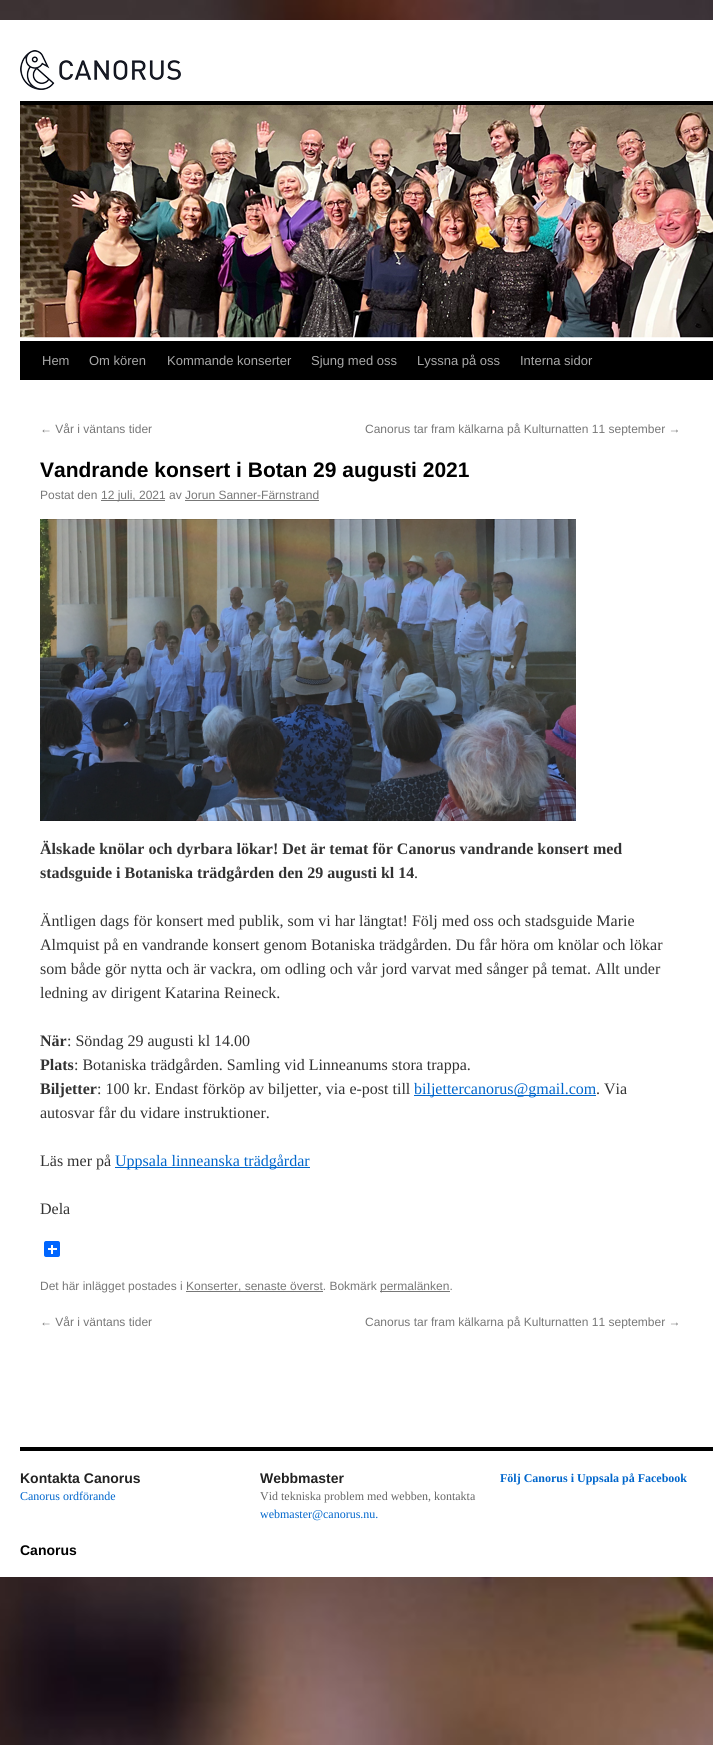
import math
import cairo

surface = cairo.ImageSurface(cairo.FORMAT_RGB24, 713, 1745)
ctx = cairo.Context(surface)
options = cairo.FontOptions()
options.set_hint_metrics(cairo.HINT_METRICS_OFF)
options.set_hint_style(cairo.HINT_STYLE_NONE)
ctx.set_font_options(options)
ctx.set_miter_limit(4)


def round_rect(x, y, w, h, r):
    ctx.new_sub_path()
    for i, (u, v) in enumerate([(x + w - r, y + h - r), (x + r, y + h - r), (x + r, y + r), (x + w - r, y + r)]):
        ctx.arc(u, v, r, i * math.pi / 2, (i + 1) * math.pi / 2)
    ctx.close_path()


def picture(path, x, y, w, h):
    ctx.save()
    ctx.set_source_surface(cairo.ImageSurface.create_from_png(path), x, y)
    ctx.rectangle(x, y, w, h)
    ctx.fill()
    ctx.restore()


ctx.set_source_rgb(1, 1, 1)
ctx.paint()
picture("img1.png", 0, 0, 713, 1745)
ctx.set_source_rgb(1, 1, 1)
ctx.rectangle(0, 20, 713, 1557)
ctx.fill()
picture("img2.png", 20, 50, 161, 40)
ctx.set_source_rgb(0, 0, 0)
ctx.rectangle(20, 101, 693, 4)
ctx.fill()
ctx.rectangle(20, 341, 693, 39)
ctx.fill()
picture("img3.png", 20, 105, 693, 233)
ctx.select_font_face("Liberation Sans")
ctx.set_font_size(13)
ctx.set_source_rgb(0.667, 0.667, 0.667)
ctx.move_to(42, 365)
ctx.show_text("Hem")
ctx.move_to(89, 365)
ctx.show_text("Om kören")
ctx.move_to(167, 365)
ctx.show_text("Kommande konserter")
ctx.move_to(311, 365)
ctx.show_text("Sjung med oss")
ctx.move_to(417, 365)
ctx.show_text("Lyssna på oss")
ctx.move_to(520, 365)
ctx.show_text("Interna sidor")
ctx.set_font_size(12)
ctx.set_source_rgb(0.467, 0.467, 0.467)
ctx.move_to(40, 433)
ctx.show_text("← Vår i väntans tider")
ctx.move_to(365, 433)
ctx.show_text("Canorus tar fram kälkarna på Kulturnatten 11 september →")
ctx.select_font_face("Liberation Sans", cairo.FONT_SLANT_NORMAL, cairo.FONT_WEIGHT_BOLD)
ctx.set_font_size(21)
ctx.set_source_rgb(0, 0, 0)
ctx.move_to(40, 477)
ctx.show_text("Vandrande konsert i Botan 29 augusti 2021")
ctx.select_font_face("Liberation Sans")
ctx.set_font_size(12)
ctx.set_source_rgb(0.467, 0.467, 0.467)
ctx.move_to(40, 499)
ctx.show_text("Postat den")
ctx.rectangle(101, 500, 64, 1)
ctx.fill()
ctx.move_to(101, 499)
ctx.show_text("12 juli, 2021 av Jorun Sanner-Färnstrand")
ctx.rectangle(185, 500, 134, 1)
ctx.fill()
picture("img4.png", 40, 519, 536, 302)
ctx.select_font_face("Liberation Serif", cairo.FONT_SLANT_NORMAL, cairo.FONT_WEIGHT_BOLD)
ctx.set_font_size(16)
ctx.set_source_rgb(0.2, 0.2, 0.2)
ctx.move_to(40, 854)
ctx.show_text("Älskade knölar och dyrbara lökar! Det är temat för Canorus vandrande konsert med")
ctx.move_to(40, 878)
ctx.show_text("stadsguide i Botaniska trädgården den 29 augusti kl 14")
ctx.select_font_face("Liberation Serif")
ctx.move_to(414, 878)
ctx.show_text(".")
ctx.move_to(40, 926)
ctx.show_text("Äntligen dags för konsert med publik, som vi har längtat! Följ med oss och stadsguide Marie")
ctx.move_to(40, 950)
ctx.show_text("Almquist på en vandrande konsert genom Botaniska trädgården. Du får höra om knölar och lökar")
ctx.move_to(40, 974)
ctx.show_text("som både gör nytta och är vackra, om odling och vår jord varvat med sånger på temat. Allt under")
ctx.move_to(40, 998)
ctx.show_text("ledning av dirigent Katarina Reineck.")
ctx.select_font_face("Liberation Serif", cairo.FONT_SLANT_NORMAL, cairo.FONT_WEIGHT_BOLD)
ctx.move_to(40, 1046)
ctx.show_text("När")
ctx.select_font_face("Liberation Serif")
ctx.move_to(67, 1046)
ctx.show_text(": Söndag 29 augusti kl 14.00")
ctx.select_font_face("Liberation Serif", cairo.FONT_SLANT_NORMAL, cairo.FONT_WEIGHT_BOLD)
ctx.move_to(40, 1070)
ctx.show_text("Plats")
ctx.select_font_face("Liberation Serif")
ctx.move_to(74, 1070)
ctx.show_text(": Botaniska trädgården. Samling vid Linneanums stora trappa.")
ctx.select_font_face("Liberation Serif", cairo.FONT_SLANT_NORMAL, cairo.FONT_WEIGHT_BOLD)
ctx.move_to(40, 1094)
ctx.show_text("Biljetter")
ctx.select_font_face("Liberation Serif")
ctx.move_to(97, 1094)
ctx.show_text(": 100 kr. Endast förköp av biljetter, via e-post till")
ctx.set_source_rgb(0, 0.4, 0.8)
ctx.rectangle(414, 1095, 182, 1)
ctx.fill()
ctx.move_to(414, 1094)
ctx.show_text("biljettercanorus@gmail.com")
ctx.set_source_rgb(0.2, 0.2, 0.2)
ctx.move_to(596, 1094)
ctx.show_text(". Via")
ctx.move_to(40, 1118)
ctx.show_text("autosvar får du vidare instruktioner.")
ctx.move_to(40, 1166)
ctx.show_text("Läs mer på")
ctx.set_source_rgb(0, 0.4, 0.8)
ctx.rectangle(115, 1167, 195, 1)
ctx.fill()
ctx.move_to(115, 1166)
ctx.show_text("Uppsala linneanska trädgårdar")
ctx.set_source_rgb(0.2, 0.2, 0.2)
ctx.move_to(40, 1214)
ctx.show_text("Dela")
ctx.set_source_rgb(0.004, 0.4, 1)
round_rect(44, 1241, 16, 16, 2)
ctx.fill()
ctx.set_source_rgb(1, 1, 1)
ctx.rectangle(51, 1245, 2, 9)
ctx.fill()
ctx.rectangle(48, 1248, 9, 2)
ctx.fill()
ctx.select_font_face("Liberation Sans")
ctx.set_font_size(12)
ctx.set_source_rgb(0.467, 0.467, 0.467)
ctx.move_to(40, 1290)
ctx.show_text("Det här inlägget postades i")
ctx.rectangle(186, 1291, 137, 1)
ctx.fill()
ctx.move_to(186, 1290)
ctx.show_text("Konserter, senaste överst. Bokmärk")
ctx.rectangle(380, 1291, 70, 1)
ctx.fill()
ctx.move_to(380, 1290)
ctx.show_text("permalänken.")
ctx.move_to(40, 1326)
ctx.show_text("← Vår i väntans tider")
ctx.move_to(365, 1326)
ctx.show_text("Canorus tar fram kälkarna på Kulturnatten 11 september →")
ctx.set_source_rgb(0, 0, 0)
ctx.rectangle(20, 1447, 693, 4)
ctx.fill()
ctx.select_font_face("Liberation Sans", cairo.FONT_SLANT_NORMAL, cairo.FONT_WEIGHT_BOLD)
ctx.set_font_size(14)
ctx.set_source_rgb(0.133, 0.133, 0.133)
ctx.move_to(20, 1483)
ctx.show_text("Kontakta Canorus")
ctx.select_font_face("Liberation Serif")
ctx.set_font_size(12)
ctx.set_source_rgb(0, 0.4, 0.8)
ctx.move_to(20, 1500)
ctx.show_text("Canorus ordförande")
ctx.select_font_face("Liberation Sans", cairo.FONT_SLANT_NORMAL, cairo.FONT_WEIGHT_BOLD)
ctx.set_font_size(14)
ctx.set_source_rgb(0.133, 0.133, 0.133)
ctx.move_to(260, 1483)
ctx.show_text("Webbmaster")
ctx.select_font_face("Liberation Serif")
ctx.set_font_size(12)
ctx.set_source_rgb(0.4, 0.4, 0.4)
ctx.move_to(260, 1500)
ctx.show_text("Vid tekniska problem med webben, kontakta")
ctx.set_source_rgb(0, 0.4, 0.8)
ctx.move_to(260, 1518)
ctx.show_text("webmaster@canorus.nu.")
ctx.select_font_face("Liberation Serif", cairo.FONT_SLANT_NORMAL, cairo.FONT_WEIGHT_BOLD)
ctx.move_to(500, 1482)
ctx.show_text("Följ Canorus i Uppsala på Facebook")
ctx.select_font_face("Liberation Sans", cairo.FONT_SLANT_NORMAL, cairo.FONT_WEIGHT_BOLD)
ctx.set_font_size(14)
ctx.set_source_rgb(0, 0, 0)
ctx.move_to(20, 1555)
ctx.show_text("Canorus")
surface.write_to_png("page.png")
